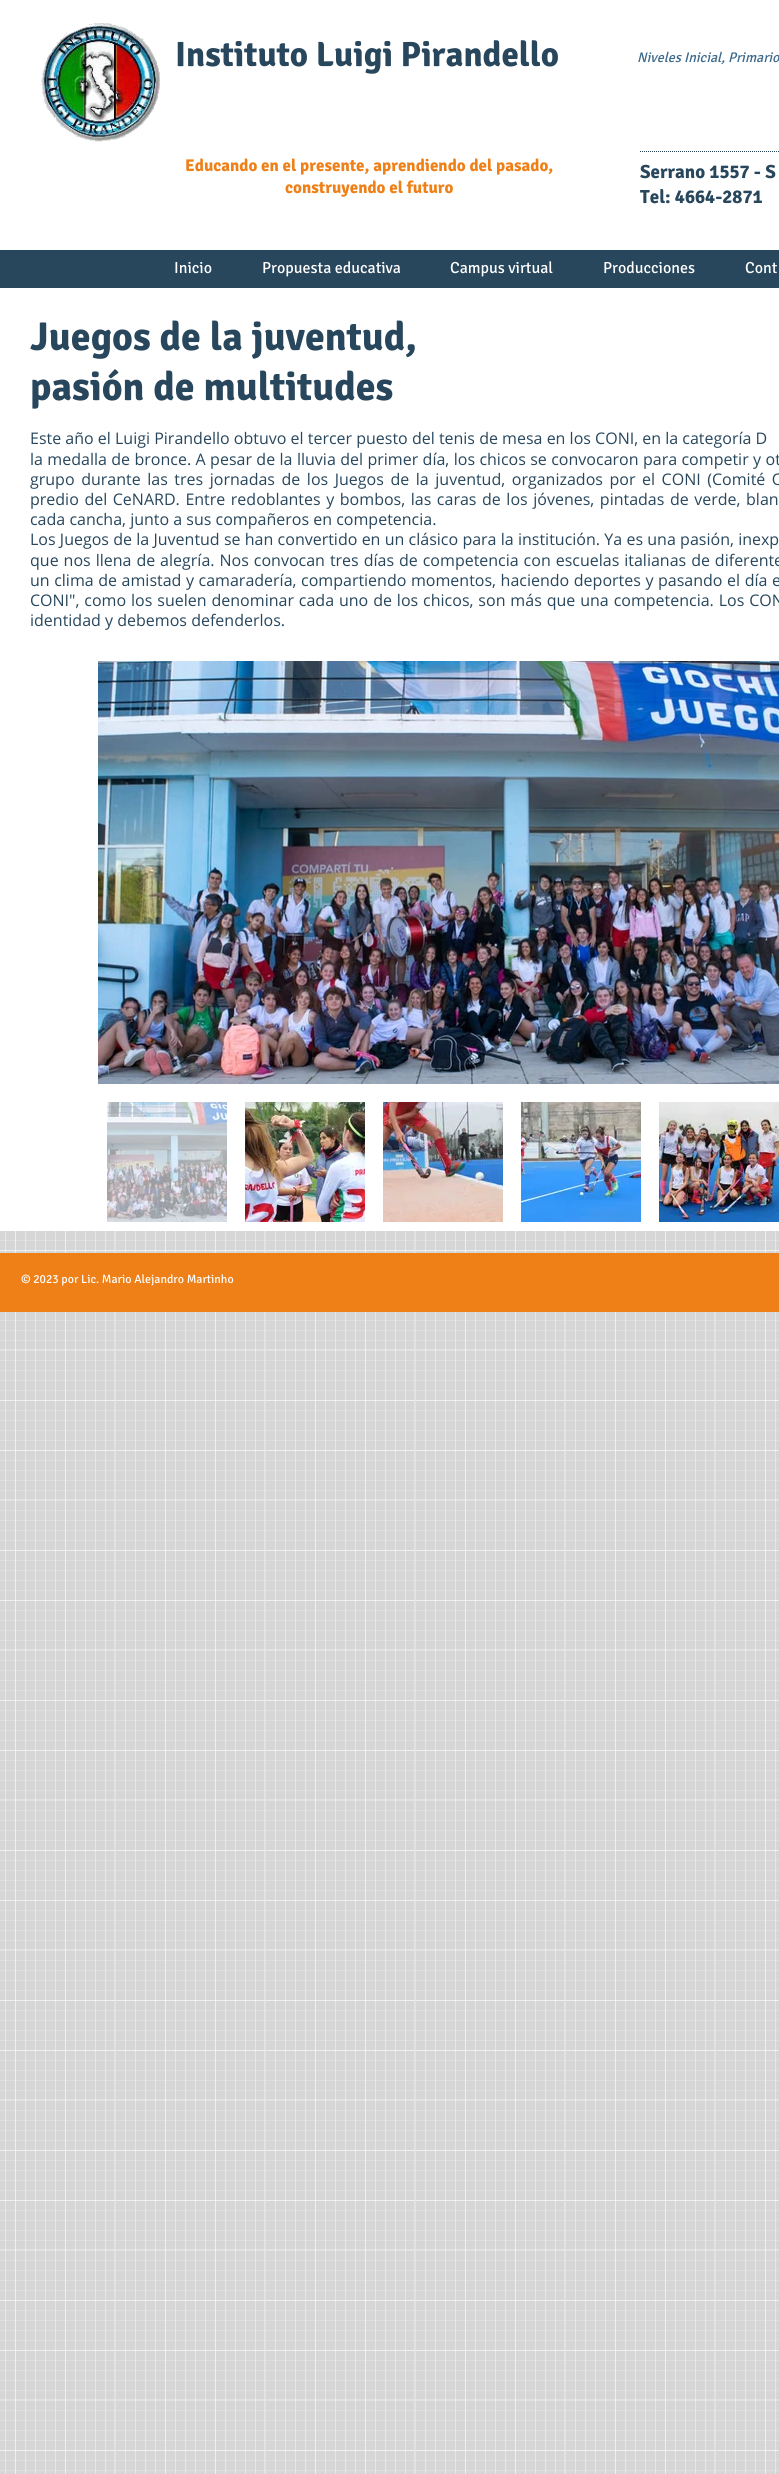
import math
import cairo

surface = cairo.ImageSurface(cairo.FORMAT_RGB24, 779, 2474)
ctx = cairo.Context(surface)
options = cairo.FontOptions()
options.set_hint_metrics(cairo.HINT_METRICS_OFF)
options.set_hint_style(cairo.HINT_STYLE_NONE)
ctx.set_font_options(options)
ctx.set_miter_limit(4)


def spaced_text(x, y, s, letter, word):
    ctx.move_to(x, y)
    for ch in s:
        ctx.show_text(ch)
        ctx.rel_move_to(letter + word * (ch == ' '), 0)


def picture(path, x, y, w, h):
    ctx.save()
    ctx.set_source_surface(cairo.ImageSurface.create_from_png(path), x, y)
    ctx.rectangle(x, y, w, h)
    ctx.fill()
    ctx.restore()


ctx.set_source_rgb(0.839, 0.839, 0.839)
ctx.paint()
ctx.set_source_rgb(1, 1, 1)
ctx.rectangle(0, 0, 779, 1231)
ctx.fill()
picture("img1.png", 41, 23, 119, 119)
ctx.select_font_face("Signika", cairo.FONT_SLANT_NORMAL, cairo.FONT_WEIGHT_BOLD)
ctx.set_font_size(35)
ctx.set_source_rgb(0.157, 0.278, 0.365)
ctx.move_to(175, 66)
ctx.show_text("Instituto Luigi Pirandello")
ctx.select_font_face("Signika", cairo.FONT_SLANT_ITALIC)
ctx.set_font_size(14)
ctx.set_source_rgb(0.235, 0.416, 0.549)
ctx.move_to(637, 62)
ctx.show_text("Niveles Inicial, Primario")
ctx.new_path()
ctx.move_to(640, 151.5)
ctx.line_to(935, 151.5)
ctx.set_source_rgb(0.157, 0.278, 0.365)
ctx.set_line_width(1)
ctx.set_dash([1, 1])
ctx.stroke()
ctx.select_font_face("Signika", cairo.FONT_SLANT_NORMAL, cairo.FONT_WEIGHT_BOLD)
ctx.set_font_size(17)
ctx.set_source_rgb(0.937, 0.502, 0.09)
ctx.move_to(185, 171)
ctx.show_text("Educando en el presente, aprendiendo del pasado,")
ctx.move_to(285, 193)
ctx.show_text("construyendo el futuro")
ctx.set_font_size(19)
ctx.set_source_rgb(0.157, 0.278, 0.365)
ctx.move_to(640, 178)
ctx.show_text("Serrano 1557 - S")
ctx.move_to(640, 203)
ctx.show_text("Tel: 4664-2871")
ctx.rectangle(0, 250, 779, 38)
ctx.fill()
ctx.select_font_face("Signika")
ctx.set_font_size(16)
ctx.set_source_rgb(1, 1, 1)
ctx.move_to(174, 273)
ctx.show_text("Inicio")
ctx.move_to(262, 273)
ctx.show_text("Propuesta educativa")
ctx.move_to(450, 273)
ctx.show_text("Campus virtual")
ctx.move_to(603, 273)
ctx.show_text("Producciones")
ctx.move_to(745, 273)
ctx.show_text("Cont")
ctx.select_font_face("Signika", cairo.FONT_SLANT_NORMAL, cairo.FONT_WEIGHT_BOLD)
ctx.set_font_size(40)
ctx.set_source_rgb(0.157, 0.278, 0.365)
ctx.move_to(30, 350)
ctx.show_text("Juegos de la juventud,")
ctx.move_to(30, 400)
ctx.show_text("pasión de multitudes")
ctx.select_font_face("Open Sans")
ctx.set_font_size(16)
ctx.move_to(30, 444)
ctx.show_text("Este año el Luigi Pirandello obtuvo el tercer puesto del tenis de mesa en los CONI, en la categoría D")
spaced_text(30, 465, "la medalla de bronce. A pesar de la lluvia del primer día, los chicos se convocaron para competir y ot", 0, 0.25)
spaced_text(30, 485, "grupo durante las tres jornadas de los Juegos de la juventud, organizados por el CONI (Comité O", 0, 2.4)
spaced_text(30, 505, "predio del CeNARD. Entre redoblantes y bombos, las caras de los jóvenes, pintadas de verde, blan", 0, 1.4)
ctx.move_to(30, 525)
ctx.show_text("cada cancha, junto a sus compañeros en competencia.")
spaced_text(30, 545, "Los Juegos de la Juventud se han convertido en un clásico para la institución. Ya es una pasión, inexp", 0, 0.1)
spaced_text(30, 566, "que nos llena de alegría. Nos convocan tres días de competencia con escuelas italianas de diferente", 0, 0.8)
spaced_text(30, 586, "un clima de amistad y camaradería, compartiendo momentos, haciendo deportes y pasando el día e", 0, 0.4)
spaced_text(30, 606, "CONI\", como los suelen denominar cada uno de los chicos, son más que una competencia. Los CON", 0, 0.75)
ctx.move_to(30, 626)
ctx.show_text("identidad y debemos defenderlos.")
picture("img2.png", 98, 661, 681, 423)
picture("img3.png", 107, 1102, 120, 120)
picture("img4.png", 245, 1102, 120, 120)
picture("img5.png", 383, 1102, 120, 120)
picture("img6.png", 521, 1102, 120, 120)
picture("img7.png", 659, 1102, 120, 120)
picture("img8.png", 0, 1231, 779, 1243)
ctx.set_source_rgb(0.937, 0.502, 0.09)
ctx.rectangle(0, 1253, 779, 59)
ctx.fill()
ctx.select_font_face("Signika")
ctx.set_font_size(12)
ctx.set_source_rgb(1, 1, 1)
ctx.move_to(21, 1283)
ctx.show_text("© 2023 por Lic. Mario Alejandro Martinho")
surface.write_to_png("page.png")
